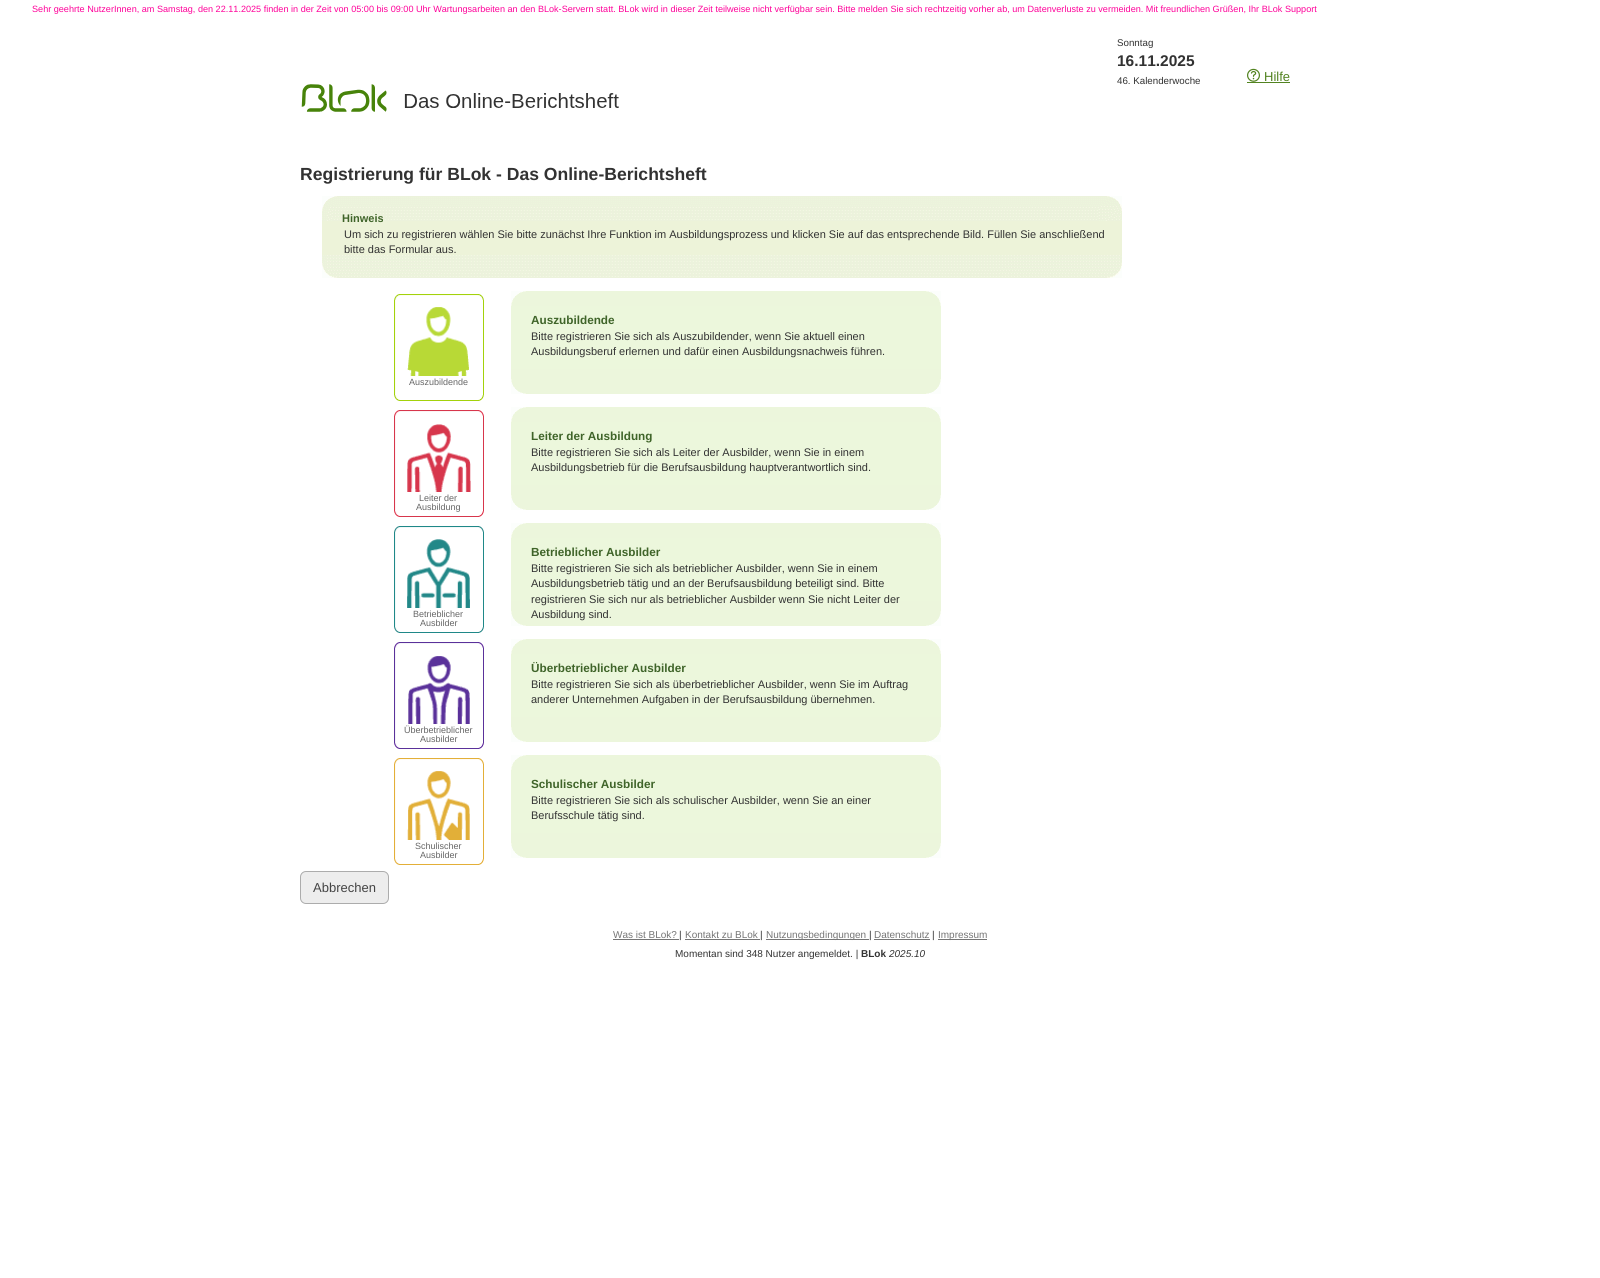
import math
import cairo

surface = cairo.ImageSurface(cairo.FORMAT_RGB24, 1600, 1278)
ctx = cairo.Context(surface)
options = cairo.FontOptions()
options.set_hint_metrics(cairo.HINT_METRICS_OFF)
options.set_hint_style(cairo.HINT_STYLE_NONE)
ctx.set_font_options(options)
ctx.set_miter_limit(4)


def round_rect(x, y, w, h, r):
    ctx.new_sub_path()
    for i, (u, v) in enumerate([(x + w - r, y + h - r), (x + r, y + h - r), (x + r, y + r), (x + w - r, y + r)]):
        ctx.arc(u, v, r, i * math.pi / 2, (i + 1) * math.pi / 2)
    ctx.close_path()


def picture(path, x, y, w, h):
    ctx.save()
    ctx.set_source_surface(cairo.ImageSurface.create_from_png(path), x, y)
    ctx.rectangle(x, y, w, h)
    ctx.fill()
    ctx.restore()


ctx.set_source_rgb(1, 1, 1)
ctx.paint()
ctx.select_font_face("Liberation Sans")
ctx.set_font_size(9.1)
ctx.set_source_rgb(1, 0, 0.6)
ctx.move_to(32, 12)
ctx.show_text("Sehr geehrte NutzerInnen, am Samstag, den 22.11.2025 finden in der Zeit von 05:00 bis 09:00 Uhr Wartungsarbeiten an den BLok-Servern statt. BLok wird in dieser Zeit teilweise nicht verfügbar sein. Bitte melden Sie sich rechtzeitig vorher ab, um Datenverluste zu vermeiden. Mit freundlichen Grüßen, Ihr BLok Support")
ctx.set_font_size(9.75)
ctx.set_source_rgb(0.196, 0.196, 0.196)
ctx.move_to(1117, 46)
ctx.show_text("Sonntag")
ctx.select_font_face("Liberation Sans", cairo.FONT_SLANT_NORMAL, cairo.FONT_WEIGHT_BOLD)
ctx.set_font_size(15.5)
ctx.move_to(1117, 66)
ctx.show_text("16.11.2025")
ctx.select_font_face("Liberation Sans")
ctx.set_font_size(9.75)
ctx.move_to(1117, 84)
ctx.show_text("46. Kalenderwoche")
picture("img1.png", 1247, 68, 13, 14)
ctx.set_font_size(13)
ctx.set_source_rgb(0.322, 0.514, 0.125)
ctx.move_to(1264, 81)
ctx.show_text("Hilfe")
ctx.rectangle(1247, 82, 43, 1)
ctx.fill()
picture("img2.png", 301, 84, 318, 28)
ctx.select_font_face("Liberation Sans", cairo.FONT_SLANT_NORMAL, cairo.FONT_WEIGHT_BOLD)
ctx.set_font_size(17.55)
ctx.set_source_rgb(0.196, 0.196, 0.196)
ctx.move_to(300, 180)
ctx.show_text("Registrierung für BLok - Das Online-Berichtsheft")
ctx.set_source_rgb(0.929, 0.953, 0.851)
ctx.rectangle(322, 221, 800, 34)
ctx.fill()
picture("img3.png", 322, 255, 800, 23)
picture("img4.png", 322, 196, 800, 25)
ctx.set_font_size(11)
ctx.set_source_rgb(0.247, 0.392, 0.161)
ctx.move_to(342, 222)
ctx.show_text("Hinweis")
ctx.select_font_face("Liberation Sans")
ctx.set_source_rgb(0.196, 0.196, 0.196)
ctx.move_to(344, 238)
ctx.show_text("Um sich zu registrieren wählen Sie bitte zunächst Ihre Funktion im Ausbildungsprozess und klicken Sie auf das entsprechende Bild. Füllen Sie anschließend")
ctx.move_to(344, 253)
ctx.show_text("bitte das Formular aus.")
picture("img5.png", 511, 369, 430, 25)
ctx.set_source_rgb(0.925, 0.965, 0.863)
ctx.rectangle(511, 306, 430, 63)
ctx.fill()
picture("img6.png", 511, 291, 430, 15)
ctx.select_font_face("Liberation Sans", cairo.FONT_SLANT_NORMAL, cairo.FONT_WEIGHT_BOLD)
ctx.set_font_size(11.75)
ctx.set_source_rgb(0.247, 0.392, 0.161)
ctx.move_to(531, 324)
ctx.show_text("Auszubildende")
ctx.select_font_face("Liberation Sans")
ctx.set_font_size(11)
ctx.set_source_rgb(0.196, 0.196, 0.196)
ctx.move_to(531, 340)
ctx.show_text("Bitte registrieren Sie sich als Auszubildender, wenn Sie aktuell einen")
ctx.move_to(531, 355)
ctx.show_text("Ausbildungsberuf erlernen und dafür einen Ausbildungsnachweis führen.")
picture("img7.png", 394, 294, 90, 107)
picture("img8.png", 407, 307, 62, 69)
ctx.set_font_size(9)
ctx.set_source_rgb(0.4, 0.4, 0.4)
ctx.move_to(409, 385)
ctx.show_text("Auszubildende")
picture("img5.png", 511, 485, 430, 25)
ctx.set_source_rgb(0.925, 0.965, 0.863)
ctx.rectangle(511, 422, 430, 63)
ctx.fill()
picture("img6.png", 511, 407, 430, 15)
ctx.select_font_face("Liberation Sans", cairo.FONT_SLANT_NORMAL, cairo.FONT_WEIGHT_BOLD)
ctx.set_font_size(11.75)
ctx.set_source_rgb(0.247, 0.392, 0.161)
ctx.move_to(531, 440)
ctx.show_text("Leiter der Ausbildung")
ctx.select_font_face("Liberation Sans")
ctx.set_font_size(11)
ctx.set_source_rgb(0.196, 0.196, 0.196)
ctx.move_to(531, 456)
ctx.show_text("Bitte registrieren Sie sich als Leiter der Ausbilder, wenn Sie in einem")
ctx.move_to(531, 471)
ctx.show_text("Ausbildungsbetrieb für die Berufsausbildung hauptverantwortlich sind.")
picture("img9.png", 394, 410, 90, 107)
picture("img10.png", 407, 424, 64, 68)
ctx.set_font_size(9)
ctx.set_source_rgb(0.4, 0.4, 0.4)
ctx.move_to(419, 501)
ctx.show_text("Leiter der")
ctx.move_to(416, 510)
ctx.show_text("Ausbildung")
picture("img11.png", 394, 526, 90, 107)
picture("img12.png", 407, 539, 63, 69)
ctx.move_to(413, 617)
ctx.show_text("Betrieblicher")
ctx.move_to(420, 626)
ctx.show_text("Ausbilder")
picture("img5.png", 511, 601, 430, 25)
ctx.set_source_rgb(0.925, 0.965, 0.863)
ctx.rectangle(511, 538, 430, 63)
ctx.fill()
picture("img6.png", 511, 523, 430, 15)
ctx.select_font_face("Liberation Sans", cairo.FONT_SLANT_NORMAL, cairo.FONT_WEIGHT_BOLD)
ctx.set_font_size(11.75)
ctx.set_source_rgb(0.247, 0.392, 0.161)
ctx.move_to(531, 556)
ctx.show_text("Betrieblicher Ausbilder")
ctx.select_font_face("Liberation Sans")
ctx.set_font_size(11)
ctx.set_source_rgb(0.196, 0.196, 0.196)
ctx.move_to(531, 572)
ctx.show_text("Bitte registrieren Sie sich als betrieblicher Ausbilder, wenn Sie in einem")
ctx.move_to(531, 587)
ctx.show_text("Ausbildungsbetrieb tätig und an der Berufsausbildung beteiligt sind. Bitte")
ctx.move_to(531, 603)
ctx.show_text("registrieren Sie sich nur als betrieblicher Ausbilder wenn Sie nicht Leiter der")
ctx.move_to(531, 618)
ctx.show_text("Ausbildung sind.")
picture("img5.png", 511, 717, 430, 25)
ctx.set_source_rgb(0.925, 0.965, 0.863)
ctx.rectangle(511, 654, 430, 63)
ctx.fill()
picture("img6.png", 511, 639, 430, 15)
ctx.select_font_face("Liberation Sans", cairo.FONT_SLANT_NORMAL, cairo.FONT_WEIGHT_BOLD)
ctx.set_font_size(11.75)
ctx.set_source_rgb(0.247, 0.392, 0.161)
ctx.move_to(531, 672)
ctx.show_text("Überbetrieblicher Ausbilder")
ctx.select_font_face("Liberation Sans")
ctx.set_font_size(11)
ctx.set_source_rgb(0.196, 0.196, 0.196)
ctx.move_to(531, 688)
ctx.show_text("Bitte registrieren Sie sich als überbetrieblicher Ausbilder, wenn Sie im Auftrag")
ctx.move_to(531, 703)
ctx.show_text("anderer Unternehmen Aufgaben in der Berufsausbildung übernehmen.")
picture("img13.png", 394, 642, 90, 107)
picture("img14.png", 408, 656, 62, 68)
ctx.set_font_size(9)
ctx.set_source_rgb(0.4, 0.4, 0.4)
ctx.move_to(404, 733)
ctx.show_text("Überbetrieblicher")
ctx.move_to(420, 742)
ctx.show_text("Ausbilder")
picture("img5.png", 511, 833, 430, 25)
ctx.set_source_rgb(0.925, 0.965, 0.863)
ctx.rectangle(511, 770, 430, 63)
ctx.fill()
picture("img6.png", 511, 755, 430, 15)
ctx.select_font_face("Liberation Sans", cairo.FONT_SLANT_NORMAL, cairo.FONT_WEIGHT_BOLD)
ctx.set_font_size(11.75)
ctx.set_source_rgb(0.247, 0.392, 0.161)
ctx.move_to(531, 788)
ctx.show_text("Schulischer Ausbilder")
ctx.select_font_face("Liberation Sans")
ctx.set_font_size(11)
ctx.set_source_rgb(0.196, 0.196, 0.196)
ctx.move_to(531, 804)
ctx.show_text("Bitte registrieren Sie sich als schulischer Ausbilder, wenn Sie an einer")
ctx.move_to(531, 819)
ctx.show_text("Berufsschule tätig sind.")
picture("img15.png", 394, 758, 90, 107)
picture("img16.png", 407, 771, 63, 69)
ctx.set_font_size(9)
ctx.set_source_rgb(0.4, 0.4, 0.4)
ctx.move_to(415, 849)
ctx.show_text("Schulischer")
ctx.move_to(420, 858)
ctx.show_text("Ausbilder")
ctx.set_source_rgb(0.929, 0.929, 0.929)
round_rect(300.5, 871.5, 88, 32, 5.5)
ctx.fill_preserve()
ctx.set_source_rgb(0.675, 0.675, 0.675)
ctx.set_line_width(1)
ctx.stroke()
ctx.set_font_size(13)
ctx.set_source_rgb(0.267, 0.267, 0.267)
ctx.move_to(313, 892)
ctx.show_text("Abbrechen")
ctx.set_font_size(10)
ctx.set_source_rgb(0.459, 0.459, 0.459)
ctx.move_to(613, 938)
ctx.show_text("Was ist BLok?")
ctx.rectangle(613, 939, 66, 1)
ctx.fill()
ctx.set_source_rgb(0.196, 0.196, 0.196)
ctx.move_to(679, 938)
ctx.show_text("|")
ctx.set_source_rgb(0.459, 0.459, 0.459)
ctx.move_to(685, 938)
ctx.show_text("Kontakt zu BLok")
ctx.rectangle(685, 939, 75, 1)
ctx.fill()
ctx.set_source_rgb(0.196, 0.196, 0.196)
ctx.move_to(760, 938)
ctx.show_text("|")
ctx.set_source_rgb(0.459, 0.459, 0.459)
ctx.rectangle(766, 939, 103, 1)
ctx.fill()
ctx.move_to(766, 938)
ctx.show_text("Nutzungsbedingungen")
ctx.set_source_rgb(0.196, 0.196, 0.196)
ctx.move_to(869, 938)
ctx.show_text("|")
ctx.set_source_rgb(0.459, 0.459, 0.459)
ctx.move_to(874, 938)
ctx.show_text("Datenschutz")
ctx.rectangle(874, 939, 56, 1)
ctx.fill()
ctx.set_source_rgb(0.196, 0.196, 0.196)
ctx.move_to(932, 938)
ctx.show_text("|")
ctx.set_source_rgb(0.459, 0.459, 0.459)
ctx.rectangle(938, 939, 49, 1)
ctx.fill()
ctx.move_to(938, 938)
ctx.show_text("Impressum")
ctx.set_source_rgb(0.196, 0.196, 0.196)
ctx.move_to(675, 957)
ctx.show_text("Momentan sind 348 Nutzer angemeldet. |")
ctx.select_font_face("Liberation Sans", cairo.FONT_SLANT_NORMAL, cairo.FONT_WEIGHT_BOLD)
ctx.move_to(861, 957)
ctx.show_text("BLok")
ctx.select_font_face("Liberation Sans", cairo.FONT_SLANT_ITALIC)
ctx.move_to(889, 957)
ctx.show_text("2025.10")
surface.write_to_png("page.png")
